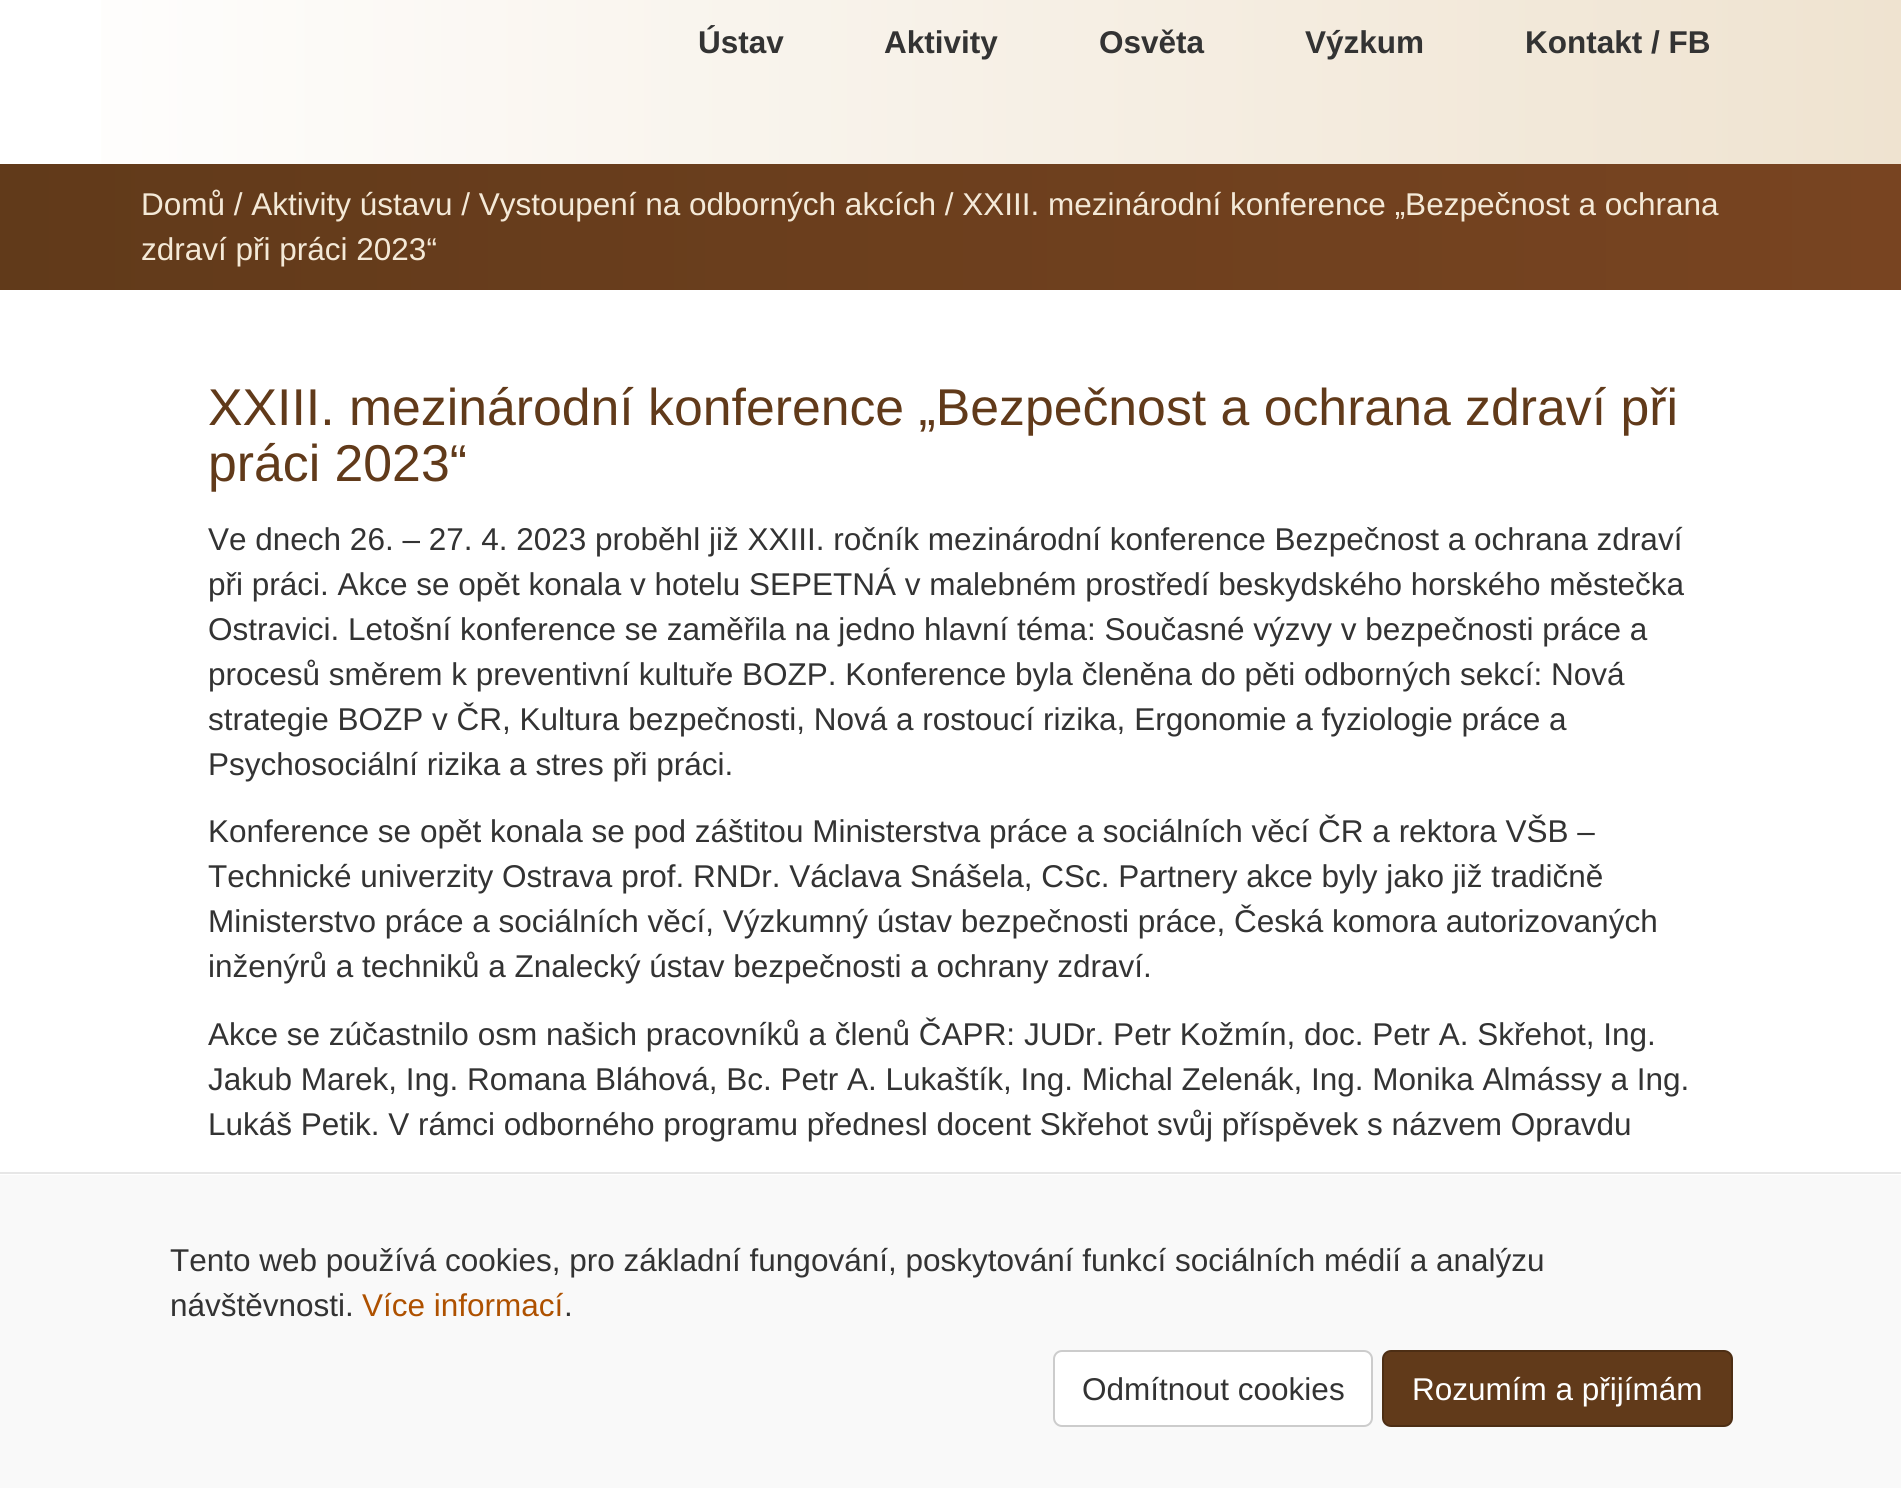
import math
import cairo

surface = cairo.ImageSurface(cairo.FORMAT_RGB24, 1901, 1488)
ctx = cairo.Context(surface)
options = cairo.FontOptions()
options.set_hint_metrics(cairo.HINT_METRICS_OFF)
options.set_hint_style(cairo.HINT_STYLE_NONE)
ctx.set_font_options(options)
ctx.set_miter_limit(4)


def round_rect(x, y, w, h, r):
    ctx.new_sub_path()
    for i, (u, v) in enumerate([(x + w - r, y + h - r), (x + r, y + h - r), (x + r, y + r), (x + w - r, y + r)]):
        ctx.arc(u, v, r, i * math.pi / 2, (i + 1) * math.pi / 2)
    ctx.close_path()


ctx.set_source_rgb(1, 1, 1)
ctx.paint()
gradient = cairo.LinearGradient(0, -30, 1901, -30)
gradient.add_color_stop_rgba(0, 1, 1, 1, 1)
gradient.add_color_stop_rgba(1, 0.937, 0.89, 0.816, 1)
ctx.set_source(gradient)
ctx.rectangle(101, 0, 1800, 164)
ctx.fill()
ctx.select_font_face("Liberation Sans", cairo.FONT_SLANT_NORMAL, cairo.FONT_WEIGHT_BOLD)
ctx.set_font_size(31.5)
ctx.set_source_rgb(0.2, 0.2, 0.2)
ctx.move_to(698, 53)
ctx.show_text("Ústav")
ctx.move_to(884, 53)
ctx.show_text("Aktivity")
ctx.move_to(1099, 53)
ctx.show_text("Osvěta")
ctx.move_to(1305, 53)
ctx.show_text("Výzkum")
ctx.move_to(1525, 53)
ctx.show_text("Kontakt / FB")
gradient = cairo.LinearGradient(0, 227, 1901, 227)
gradient.add_color_stop_rgba(0, 0.38, 0.227, 0.102, 1)
gradient.add_color_stop_rgba(1, 0.471, 0.267, 0.129, 1)
ctx.set_source(gradient)
ctx.rectangle(0, 164, 1901, 126)
ctx.fill()
ctx.select_font_face("Liberation Sans")
ctx.set_source_rgb(0.957, 0.914, 0.843)
ctx.move_to(141, 215)
ctx.show_text("Domů / Aktivity ústavu / Vystoupení na odborných akcích / XXIII. mezinárodní konference „Bezpečnost a ochrana")
ctx.move_to(141, 260)
ctx.show_text("zdraví při práci 2023“")
ctx.set_font_size(51.75)
ctx.set_source_rgb(0.38, 0.227, 0.102)
ctx.move_to(208, 425)
ctx.show_text("XXIII. mezinárodní konference „Bezpečnost a ochrana zdraví při")
ctx.move_to(208, 481)
ctx.show_text("práci 2023“")
ctx.set_font_size(31.5)
ctx.set_source_rgb(0.2, 0.2, 0.2)
ctx.move_to(208, 550)
ctx.show_text("Ve dnech 26. – 27. 4. 2023 proběhl již XXIII. ročník mezinárodní konference Bezpečnost a ochrana zdraví")
ctx.move_to(208, 595)
ctx.show_text("při práci. Akce se opět konala v hotelu SEPETNÁ v malebném prostředí beskydského horského městečka")
ctx.move_to(208, 640)
ctx.show_text("Ostravici. Letošní konference se zaměřila na jedno hlavní téma: Současné výzvy v bezpečnosti práce a")
ctx.move_to(208, 685)
ctx.show_text("procesů směrem k preventivní kultuře BOZP. Konference byla členěna do pěti odborných sekcí: Nová")
ctx.move_to(208, 730)
ctx.show_text("strategie BOZP v ČR, Kultura bezpečnosti, Nová a rostoucí rizika, Ergonomie a fyziologie práce a")
ctx.move_to(208, 775)
ctx.show_text("Psychosociální rizika a stres při práci.")
ctx.move_to(208, 842)
ctx.show_text("Konference se opět konala se pod záštitou Ministerstva práce a sociálních věcí ČR a rektora VŠB –")
ctx.move_to(208, 887)
ctx.show_text("Technické univerzity Ostrava prof. RNDr. Václava Snášela, CSc. Partnery akce byly jako již tradičně")
ctx.move_to(208, 932)
ctx.show_text("Ministerstvo práce a sociálních věcí, Výzkumný ústav bezpečnosti práce, Česká komora autorizovaných")
ctx.move_to(208, 977)
ctx.show_text("inženýrů a techniků a Znalecký ústav bezpečnosti a ochrany zdraví.")
ctx.move_to(208, 1045)
ctx.show_text("Akce se zúčastnilo osm našich pracovníků a členů ČAPR: JUDr. Petr Kožmín, doc. Petr A. Skřehot, Ing.")
ctx.move_to(208, 1090)
ctx.show_text("Jakub Marek, Ing. Romana Bláhová, Bc. Petr A. Lukaštík, Ing. Michal Zelenák, Ing. Monika Almássy a Ing.")
ctx.move_to(208, 1135)
ctx.show_text("Lukáš Petik. V rámci odborného programu přednesl docent Skřehot svůj příspěvek s názvem Opravdu")
ctx.set_source_rgb(0.973, 0.973, 0.973)
ctx.rectangle(0, 1175, 1901, 313)
ctx.fill()
ctx.set_source_rgb(0.906, 0.906, 0.906)
ctx.rectangle(0, 1172, 1901, 2)
ctx.fill()
ctx.set_source_rgb(0.2, 0.2, 0.2)
ctx.move_to(170, 1271)
ctx.show_text("Tento web používá cookies, pro základní fungování, poskytování funkcí sociálních médií a analýzu")
ctx.move_to(170, 1316)
ctx.show_text("návštěvnosti.")
ctx.set_source_rgb(0.682, 0.318, 0)
ctx.move_to(362, 1316)
ctx.show_text("Více informací")
ctx.set_source_rgb(0.2, 0.2, 0.2)
ctx.move_to(564, 1316)
ctx.show_text(".")
ctx.set_source_rgb(1, 1, 1)
round_rect(1054, 1351, 318, 75, 8)
ctx.fill_preserve()
ctx.set_source_rgb(0.8, 0.8, 0.8)
ctx.stroke()
ctx.set_source_rgb(0.2, 0.2, 0.2)
ctx.move_to(1082, 1400)
ctx.show_text("Odmítnout cookies")
ctx.set_source_rgb(0.38, 0.227, 0.102)
round_rect(1383, 1351, 349, 75, 8)
ctx.fill_preserve()
ctx.set_source_rgb(0.302, 0.18, 0.082)
ctx.stroke()
ctx.set_source_rgb(1, 1, 1)
ctx.move_to(1412, 1400)
ctx.show_text("Rozumím a přijímám")
surface.write_to_png("page.png")
